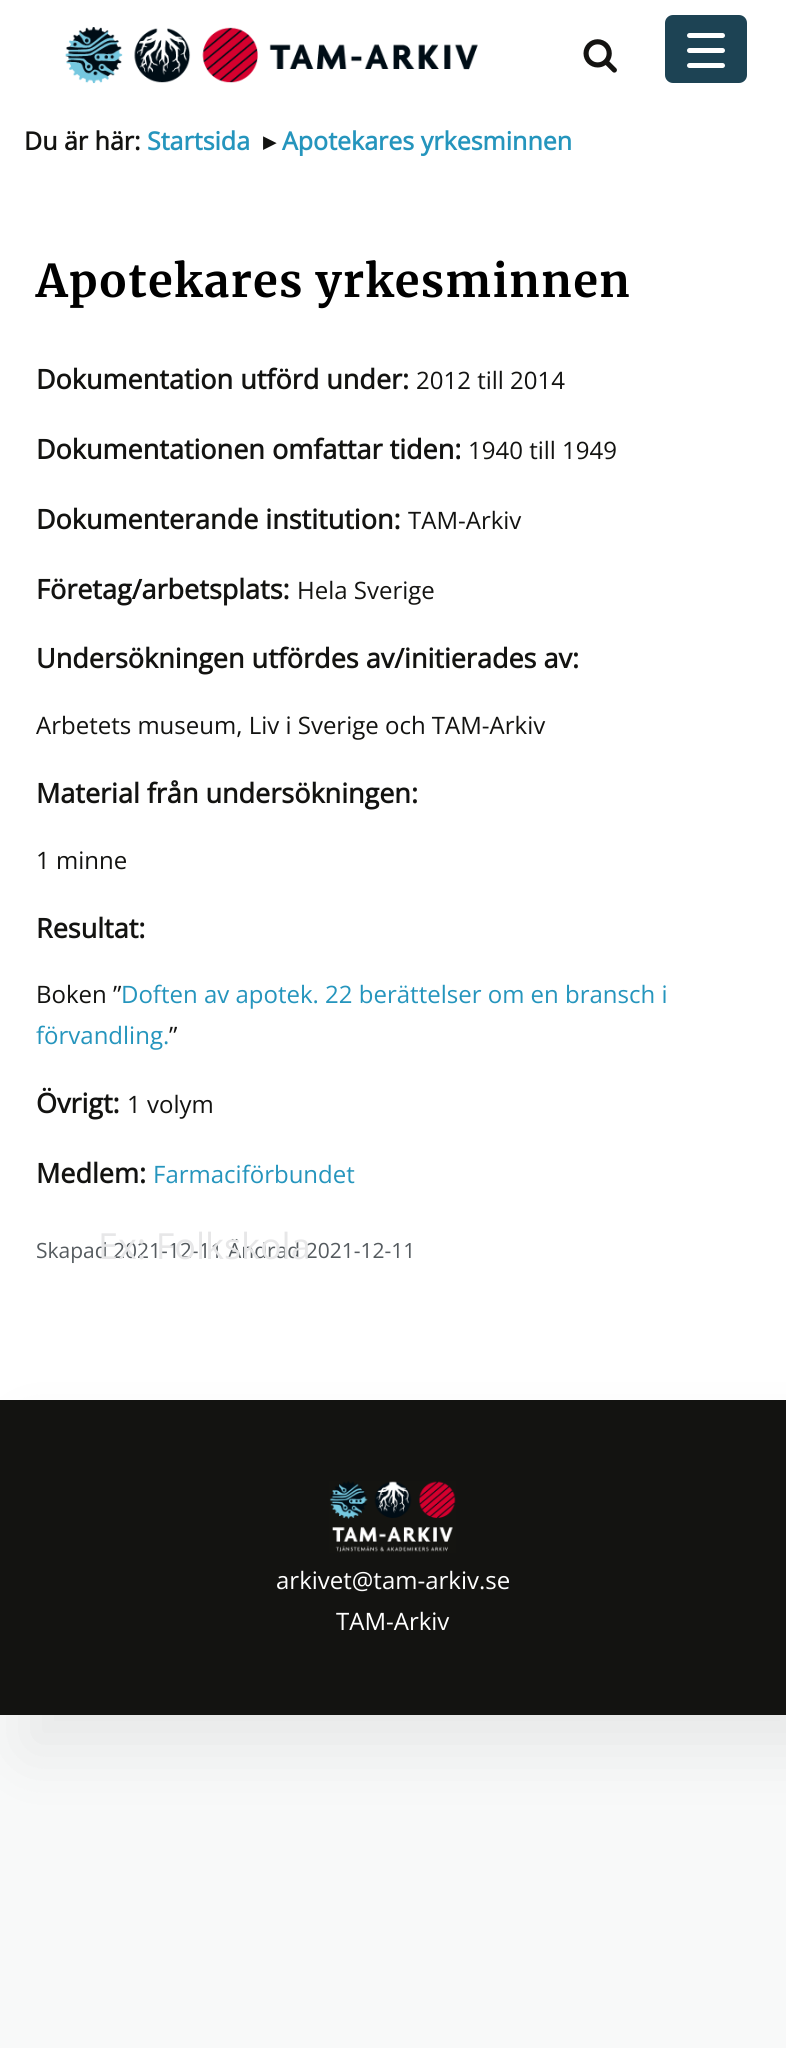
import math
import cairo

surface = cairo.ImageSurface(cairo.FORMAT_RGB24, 786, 2048)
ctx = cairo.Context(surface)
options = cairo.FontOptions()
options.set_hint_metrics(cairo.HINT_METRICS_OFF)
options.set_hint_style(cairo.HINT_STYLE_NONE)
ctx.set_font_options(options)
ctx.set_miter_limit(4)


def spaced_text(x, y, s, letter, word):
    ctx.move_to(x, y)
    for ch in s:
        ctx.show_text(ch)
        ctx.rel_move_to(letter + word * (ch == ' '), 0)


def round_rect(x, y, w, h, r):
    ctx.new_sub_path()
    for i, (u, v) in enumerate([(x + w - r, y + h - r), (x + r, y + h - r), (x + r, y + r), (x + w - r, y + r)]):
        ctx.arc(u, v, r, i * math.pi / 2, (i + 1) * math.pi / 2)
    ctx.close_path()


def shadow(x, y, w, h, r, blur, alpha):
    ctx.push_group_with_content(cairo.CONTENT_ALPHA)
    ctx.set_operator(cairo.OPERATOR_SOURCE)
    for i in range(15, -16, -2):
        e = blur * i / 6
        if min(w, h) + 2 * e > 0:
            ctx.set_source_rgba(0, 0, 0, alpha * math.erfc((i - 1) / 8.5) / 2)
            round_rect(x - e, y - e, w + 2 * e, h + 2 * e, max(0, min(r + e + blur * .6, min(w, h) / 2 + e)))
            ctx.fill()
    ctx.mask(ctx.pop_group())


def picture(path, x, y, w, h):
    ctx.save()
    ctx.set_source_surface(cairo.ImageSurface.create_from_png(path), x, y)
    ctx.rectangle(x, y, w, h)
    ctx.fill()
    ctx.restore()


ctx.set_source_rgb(0.969, 0.973, 0.973)
ctx.paint()
ctx.set_source_rgb(1, 1, 1)
ctx.rectangle(0, 0, 786, 1400)
ctx.fill()
ctx.set_source_rgb(0.114, 0.263, 0.329)
round_rect(665, 15, 82, 68, 8)
ctx.fill()
ctx.set_source_rgb(1, 1, 1)
round_rect(687, 48, 38, 5, 2.5)
ctx.fill()
round_rect(687, 33, 38, 5, 2.5)
ctx.fill()
round_rect(687, 63, 38, 5, 2.5)
ctx.fill()
ctx.select_font_face("Open Sans", cairo.FONT_SLANT_NORMAL, cairo.FONT_WEIGHT_BOLD)
ctx.set_font_size(25)
ctx.set_source_rgb(0.078, 0.075, 0.067)
ctx.move_to(24, 150)
ctx.show_text("Du är här:")
ctx.set_source_rgb(0.145, 0.584, 0.741)
ctx.move_to(147, 150)
ctx.show_text("Startsida")
ctx.select_font_face("DejaVu Sans", cairo.FONT_SLANT_NORMAL, cairo.FONT_WEIGHT_BOLD)
ctx.set_source_rgb(0.078, 0.075, 0.067)
ctx.move_to(263, 150)
ctx.show_text("▸")
ctx.select_font_face("Open Sans", cairo.FONT_SLANT_NORMAL, cairo.FONT_WEIGHT_BOLD)
ctx.set_source_rgb(0.145, 0.584, 0.741)
ctx.move_to(282, 150)
ctx.show_text("Apotekares yrkesminnen")
ctx.select_font_face("Merriweather", cairo.FONT_SLANT_NORMAL, cairo.FONT_WEIGHT_BOLD)
ctx.set_font_size(45)
ctx.set_source_rgb(0, 0, 0)
spaced_text(36, 297, "Apotekares yrkesminnen", 1.3, 0)
ctx.select_font_face("Open Sans", cairo.FONT_SLANT_NORMAL, cairo.FONT_WEIGHT_BOLD)
ctx.set_font_size(27)
ctx.set_source_rgb(0.078, 0.075, 0.067)
ctx.move_to(36, 389)
ctx.show_text("Dokumentation utförd under:")
ctx.select_font_face("Open Sans")
ctx.set_font_size(24)
ctx.move_to(416, 389)
ctx.show_text("2012 till 2014")
ctx.select_font_face("Open Sans", cairo.FONT_SLANT_NORMAL, cairo.FONT_WEIGHT_BOLD)
ctx.set_font_size(27)
ctx.move_to(36, 459)
ctx.show_text("Dokumentationen omfattar tiden:")
ctx.select_font_face("Open Sans")
ctx.set_font_size(24)
ctx.move_to(468, 459)
ctx.show_text("1940 till 1949")
ctx.select_font_face("Open Sans", cairo.FONT_SLANT_NORMAL, cairo.FONT_WEIGHT_BOLD)
ctx.set_font_size(27)
ctx.move_to(36, 529)
ctx.show_text("Dokumenterande institution:")
ctx.select_font_face("Open Sans")
ctx.set_font_size(24)
ctx.move_to(408, 529)
ctx.show_text("TAM-Arkiv")
ctx.select_font_face("Open Sans", cairo.FONT_SLANT_NORMAL, cairo.FONT_WEIGHT_BOLD)
ctx.set_font_size(27)
ctx.move_to(36, 599)
ctx.show_text("Företag/arbetsplats:")
ctx.select_font_face("Open Sans")
ctx.set_font_size(24)
ctx.move_to(297, 599)
ctx.show_text("Hela Sverige")
ctx.select_font_face("Open Sans", cairo.FONT_SLANT_NORMAL, cairo.FONT_WEIGHT_BOLD)
ctx.set_font_size(27)
ctx.move_to(36, 668)
ctx.show_text("Undersökningen utfördes av/initierades av:")
ctx.select_font_face("Open Sans")
ctx.set_font_size(24)
ctx.move_to(36, 734)
ctx.show_text("Arbetets museum, Liv i Sverige och TAM-Arkiv")
ctx.select_font_face("Open Sans", cairo.FONT_SLANT_NORMAL, cairo.FONT_WEIGHT_BOLD)
ctx.set_font_size(27)
ctx.move_to(36, 803)
ctx.show_text("Material från undersökningen:")
ctx.select_font_face("Open Sans")
ctx.set_font_size(24)
ctx.move_to(36, 869)
ctx.show_text("1 minne")
ctx.select_font_face("Open Sans", cairo.FONT_SLANT_NORMAL, cairo.FONT_WEIGHT_BOLD)
ctx.set_font_size(27)
ctx.move_to(36, 938)
ctx.show_text("Resultat:")
ctx.select_font_face("Open Sans")
ctx.set_font_size(24)
ctx.move_to(36, 1003)
ctx.show_text("Boken ”")
ctx.set_source_rgb(0.145, 0.584, 0.741)
ctx.move_to(121, 1003)
ctx.show_text("Doften av apotek. 22 berättelser om en bransch i")
ctx.move_to(36, 1044)
ctx.show_text("förvandling.")
ctx.set_source_rgb(0.078, 0.075, 0.067)
ctx.move_to(169, 1044)
ctx.show_text("”")
ctx.select_font_face("Open Sans", cairo.FONT_SLANT_NORMAL, cairo.FONT_WEIGHT_BOLD)
ctx.set_font_size(27)
ctx.move_to(36, 1113)
ctx.show_text("Övrigt:")
ctx.select_font_face("Open Sans")
ctx.set_font_size(24)
ctx.move_to(127, 1113)
ctx.show_text("1 volym")
ctx.select_font_face("Open Sans", cairo.FONT_SLANT_NORMAL, cairo.FONT_WEIGHT_BOLD)
ctx.set_font_size(27)
ctx.move_to(36, 1183)
ctx.show_text("Medlem:")
ctx.select_font_face("Open Sans")
ctx.set_font_size(24)
ctx.set_source_rgb(0.145, 0.584, 0.741)
ctx.move_to(153, 1183)
ctx.show_text("Farmaciförbundet")
ctx.set_font_size(21)
ctx.set_source_rgb(0.333, 0.357, 0.373)
ctx.move_to(36, 1258)
ctx.show_text("Skapad 2021-12-11 Ändrad 2021-12-11")
picture("img1.png", 65, 27, 413, 57)
picture("img2.png", 583, 39, 34, 34)
ctx.set_font_size(36)
ctx.set_source_rgb(0.906, 0.906, 0.91)
ctx.move_to(98, 1259)
ctx.show_text("Ex: Folkskola")
ctx.set_source_rgb(0, 0, 0)
shadow(24, 1436, 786, 315, 0, 36, 0.07)
ctx.set_source_rgb(0.078, 0.075, 0.067)
ctx.rectangle(0, 1400, 786, 315)
ctx.fill()
picture("img3.png", 329, 1481, 127, 72)
ctx.set_font_size(24)
ctx.set_source_rgb(1, 1, 1)
ctx.move_to(276, 1589)
ctx.show_text("arkivet@tam-arkiv.se")
ctx.move_to(336, 1630)
ctx.show_text("TAM-Arkiv")
surface.write_to_png("page.png")
